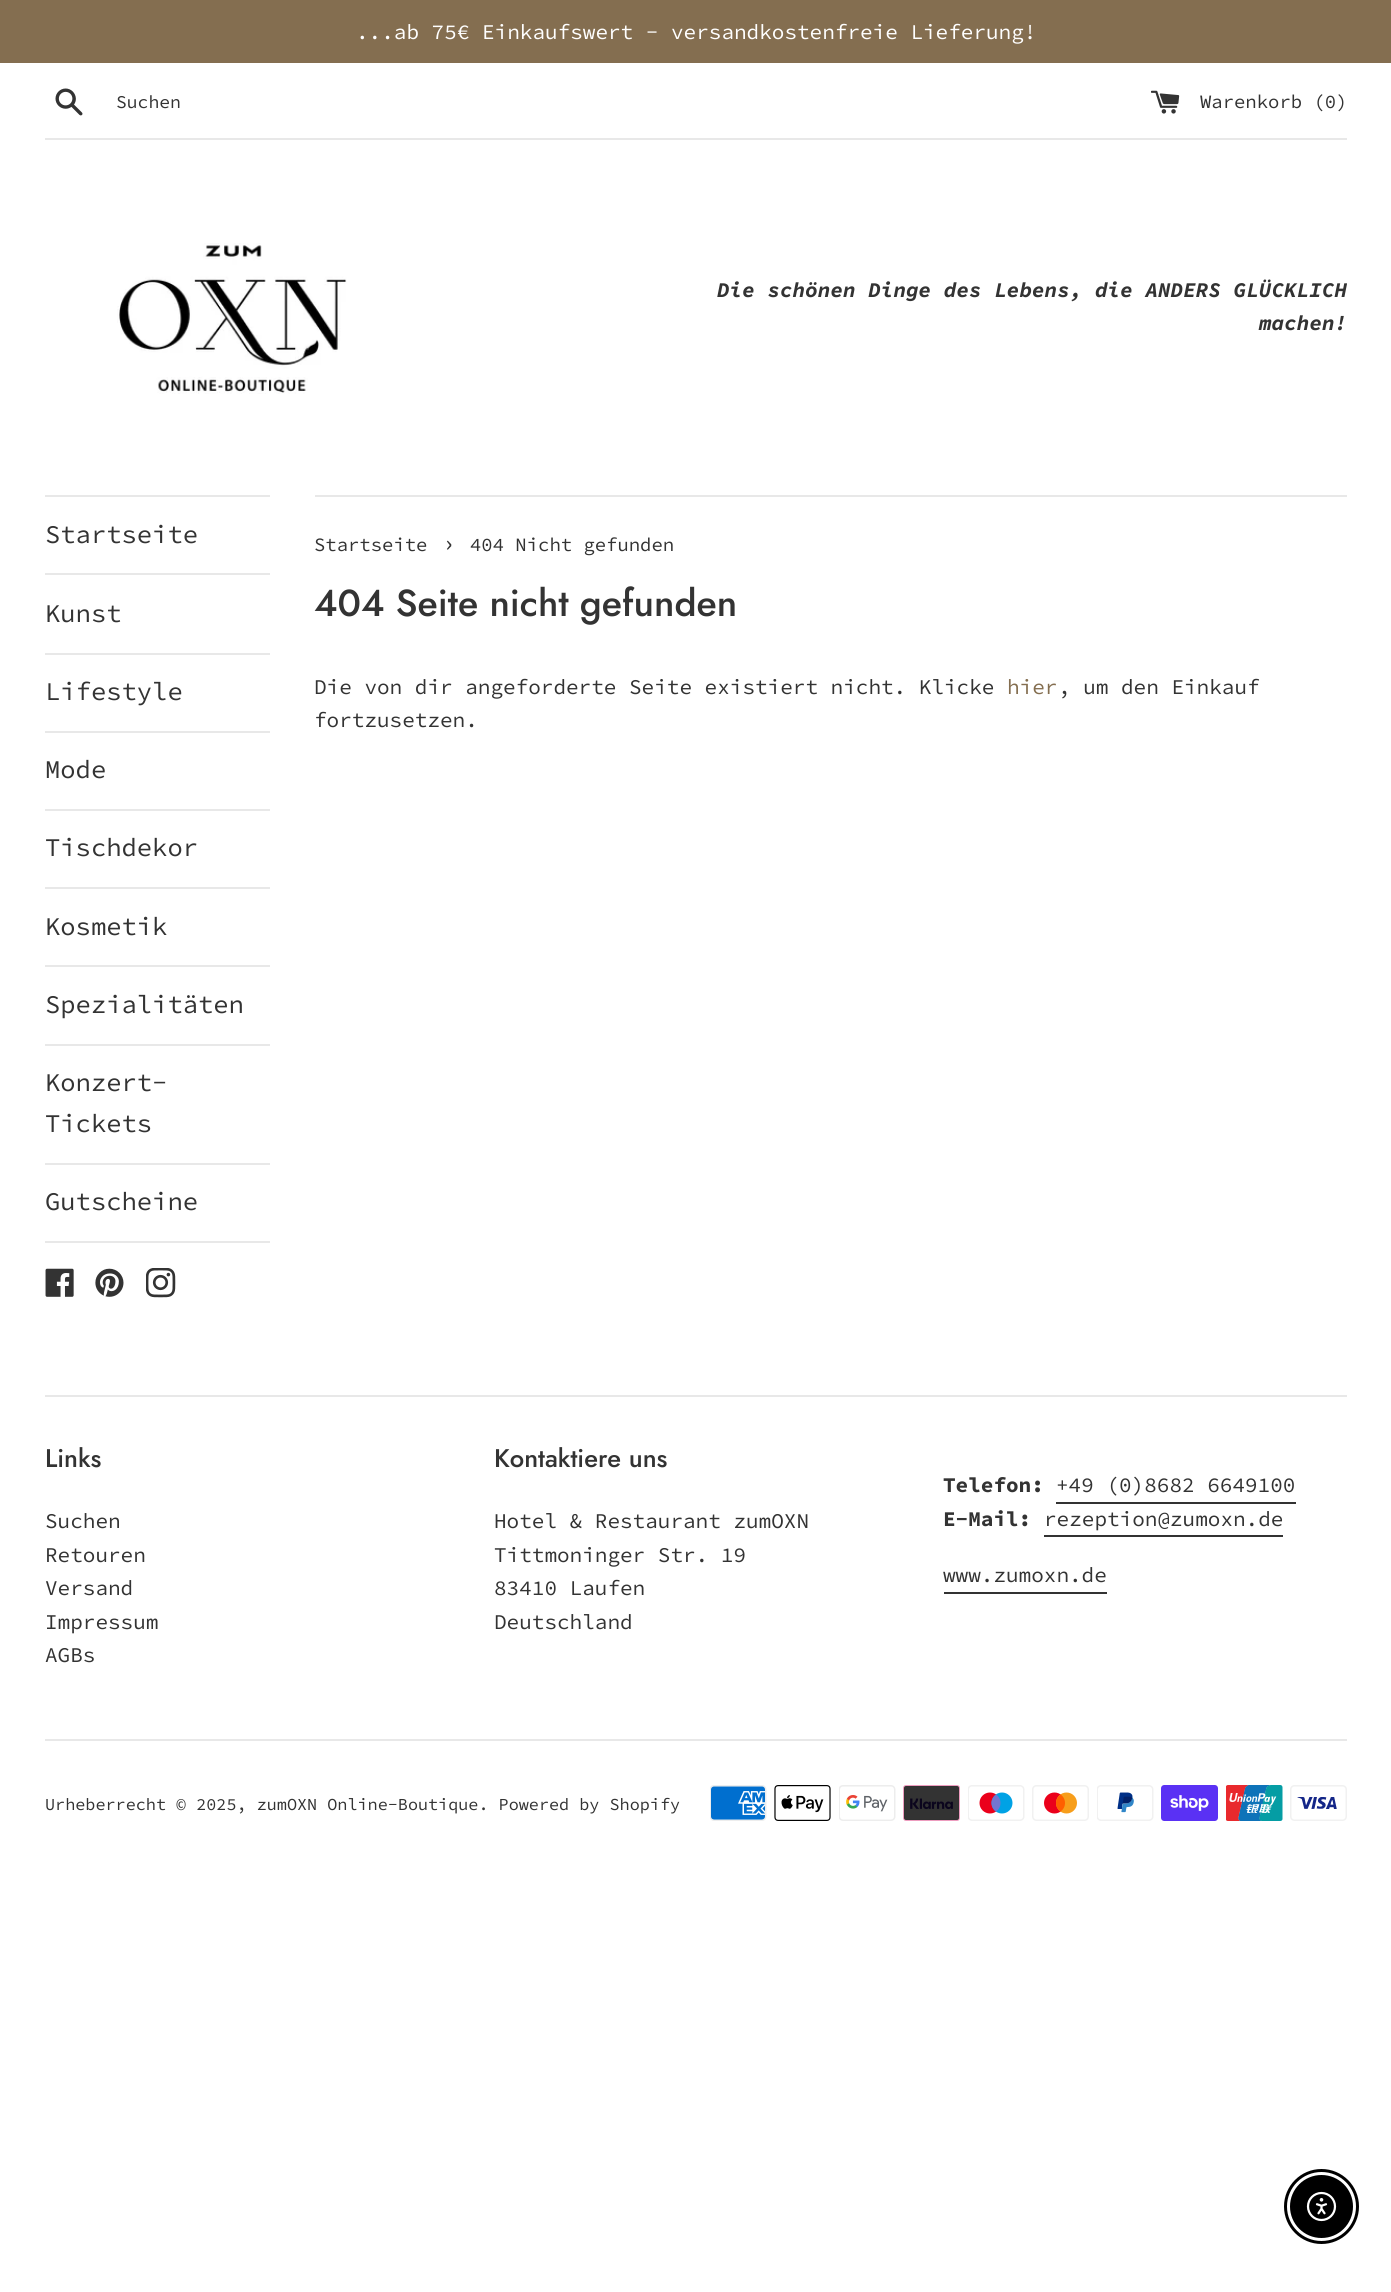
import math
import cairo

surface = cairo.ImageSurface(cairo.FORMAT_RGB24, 1391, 2292)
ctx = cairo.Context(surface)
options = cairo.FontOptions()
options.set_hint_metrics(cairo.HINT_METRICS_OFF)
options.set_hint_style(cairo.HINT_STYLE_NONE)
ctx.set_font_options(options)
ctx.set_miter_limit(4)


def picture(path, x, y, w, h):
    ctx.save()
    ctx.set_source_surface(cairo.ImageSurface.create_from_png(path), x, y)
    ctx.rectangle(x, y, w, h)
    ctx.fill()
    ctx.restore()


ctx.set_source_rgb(1, 1, 1)
ctx.paint()
ctx.set_source_rgb(0.518, 0.431, 0.314)
ctx.rectangle(0, 0, 1391, 63)
ctx.fill()
ctx.select_font_face("Source Code Pro")
ctx.set_font_size(21)
ctx.set_source_rgb(1, 1, 1)
ctx.move_to(356, 39)
ctx.show_text("...ab 75€ Einkaufswert - versandkostenfreie Lieferung!")
picture("img1.png", 55, 88, 28, 28)
ctx.set_font_size(18)
ctx.set_source_rgb(0.2, 0.2, 0.2)
ctx.move_to(116, 108)
ctx.show_text("Suchen")
picture("img2.png", 1151, 90, 29, 24)
ctx.set_font_size(18.9)
ctx.move_to(1200, 108)
ctx.show_text("Warenkorb (0)")
ctx.set_source_rgb(0.91, 0.91, 0.91)
ctx.rectangle(45, 138, 1302, 2)
ctx.fill()
picture("img3.png", 117, 243, 230, 151)
ctx.select_font_face("Source Code Pro", cairo.FONT_SLANT_ITALIC, cairo.FONT_WEIGHT_BOLD)
ctx.set_font_size(21)
ctx.set_source_rgb(0.2, 0.2, 0.2)
ctx.move_to(717, 297)
ctx.show_text("Die schönen Dinge des Lebens, die ANDERS GLÜCKLICH")
ctx.move_to(1259, 330)
ctx.show_text("machen!")
ctx.set_source_rgb(0.91, 0.91, 0.91)
ctx.rectangle(45, 495, 225, 2)
ctx.fill()
ctx.rectangle(45, 573, 225, 2)
ctx.fill()
ctx.select_font_face("Source Code Pro")
ctx.set_font_size(25.5)
ctx.set_source_rgb(0.2, 0.2, 0.2)
ctx.move_to(45, 543)
ctx.show_text("Startseite")
ctx.set_source_rgb(0.91, 0.91, 0.91)
ctx.rectangle(45, 653, 225, 2)
ctx.fill()
ctx.set_source_rgb(0.2, 0.2, 0.2)
ctx.move_to(45, 622)
ctx.show_text("Kunst")
ctx.set_source_rgb(0.91, 0.91, 0.91)
ctx.rectangle(45, 731, 225, 2)
ctx.fill()
ctx.set_source_rgb(0.2, 0.2, 0.2)
ctx.move_to(45, 700)
ctx.show_text("Lifestyle")
ctx.set_source_rgb(0.91, 0.91, 0.91)
ctx.rectangle(45, 809, 225, 2)
ctx.fill()
ctx.set_source_rgb(0.2, 0.2, 0.2)
ctx.move_to(45, 778)
ctx.show_text("Mode")
ctx.set_source_rgb(0.91, 0.91, 0.91)
ctx.rectangle(45, 887, 225, 2)
ctx.fill()
ctx.set_source_rgb(0.2, 0.2, 0.2)
ctx.move_to(45, 856)
ctx.show_text("Tischdekor")
ctx.set_source_rgb(0.91, 0.91, 0.91)
ctx.rectangle(45, 965, 225, 2)
ctx.fill()
ctx.set_source_rgb(0.2, 0.2, 0.2)
ctx.move_to(45, 935)
ctx.show_text("Kosmetik")
ctx.set_source_rgb(0.91, 0.91, 0.91)
ctx.rectangle(45, 1044, 225, 2)
ctx.fill()
ctx.set_source_rgb(0.2, 0.2, 0.2)
ctx.move_to(45, 1013)
ctx.show_text("Spezialitäten")
ctx.set_source_rgb(0.91, 0.91, 0.91)
ctx.rectangle(45, 1163, 225, 2)
ctx.fill()
ctx.set_source_rgb(0.2, 0.2, 0.2)
ctx.move_to(45, 1091)
ctx.show_text("Konzert-")
ctx.move_to(45, 1132)
ctx.show_text("Tickets")
ctx.set_source_rgb(0.91, 0.91, 0.91)
ctx.rectangle(45, 1241, 225, 2)
ctx.fill()
ctx.set_source_rgb(0.2, 0.2, 0.2)
ctx.move_to(45, 1210)
ctx.show_text("Gutscheine")
picture("img4.png", 45, 1268, 29, 29)
picture("img5.png", 95, 1268, 29, 29)
picture("img6.png", 146, 1268, 30, 30)
ctx.set_source_rgb(0.91, 0.91, 0.91)
ctx.rectangle(315, 495, 1032, 2)
ctx.fill()
ctx.set_font_size(18.9)
ctx.set_source_rgb(0.2, 0.2, 0.2)
ctx.move_to(314, 551)
ctx.show_text("Startseite")
ctx.set_font_size(23)
ctx.move_to(442, 551)
ctx.show_text("›")
ctx.set_font_size(18.9)
ctx.move_to(470, 551)
ctx.show_text("404 Nicht gefunden")
ctx.select_font_face("Jost Medium")
ctx.set_font_size(37.5)
ctx.move_to(314, 616)
ctx.show_text("404 Seite nicht gefunden")
ctx.select_font_face("Source Code Pro")
ctx.set_font_size(21)
ctx.move_to(314, 694)
ctx.show_text("Die von dir angeforderte Seite existiert nicht. Klicke")
ctx.set_source_rgb(0.518, 0.431, 0.314)
ctx.move_to(1007, 694)
ctx.show_text("hier")
ctx.set_source_rgb(0.2, 0.2, 0.2)
ctx.move_to(1058, 694)
ctx.show_text(", um den Einkauf")
ctx.move_to(314, 727)
ctx.show_text("fortzusetzen.")
ctx.set_source_rgb(0.91, 0.91, 0.91)
ctx.rectangle(45, 1395, 1302, 2)
ctx.fill()
ctx.select_font_face("Jost Medium")
ctx.set_font_size(25.5)
ctx.set_source_rgb(0.2, 0.2, 0.2)
ctx.move_to(45, 1467)
ctx.show_text("Links")
ctx.select_font_face("Source Code Pro")
ctx.set_font_size(21)
ctx.move_to(45, 1528)
ctx.show_text("Suchen")
ctx.move_to(45, 1562)
ctx.show_text("Retouren")
ctx.move_to(45, 1595)
ctx.show_text("Versand")
ctx.move_to(45, 1629)
ctx.show_text("Impressum")
ctx.move_to(45, 1662)
ctx.show_text("AGBs")
ctx.select_font_face("Jost Medium")
ctx.set_font_size(25.5)
ctx.move_to(494, 1467)
ctx.show_text("Kontaktiere uns")
ctx.select_font_face("Source Code Pro")
ctx.set_font_size(21)
ctx.move_to(494, 1528)
ctx.show_text("Hotel & Restaurant zumOXN")
ctx.move_to(494, 1562)
ctx.show_text("Tittmoninger Str. 19")
ctx.move_to(494, 1595)
ctx.show_text("83410 Laufen")
ctx.move_to(494, 1629)
ctx.show_text("Deutschland")
ctx.select_font_face("Source Code Pro", cairo.FONT_SLANT_NORMAL, cairo.FONT_WEIGHT_BOLD)
ctx.move_to(943, 1492)
ctx.show_text("Telefon:")
ctx.select_font_face("Source Code Pro")
ctx.move_to(1056, 1492)
ctx.show_text("+49 (0)8682 6649100")
ctx.rectangle(1056, 1502, 240, 2)
ctx.fill()
ctx.select_font_face("Source Code Pro", cairo.FONT_SLANT_NORMAL, cairo.FONT_WEIGHT_BOLD)
ctx.move_to(943, 1526)
ctx.show_text("E-Mail:")
ctx.select_font_face("Source Code Pro")
ctx.move_to(1044, 1526)
ctx.show_text("rezeption@zumoxn.de")
ctx.rectangle(1044, 1535, 239, 2)
ctx.fill()
ctx.move_to(943, 1582)
ctx.show_text("www.zumoxn.de")
ctx.rectangle(944, 1592, 163, 2)
ctx.fill()
ctx.set_source_rgb(0.91, 0.91, 0.91)
ctx.rectangle(45, 1739, 1302, 2)
ctx.fill()
ctx.set_font_size(16.8)
ctx.set_source_rgb(0.2, 0.2, 0.2)
ctx.move_to(45, 1810)
ctx.show_text("Urheberrecht © 2025, zumOXN Online-Boutique. Powered by Shopify")
picture("img7.png", 710, 1785, 57, 36)
picture("img8.png", 774, 1785, 57, 36)
picture("img9.png", 839, 1785, 57, 36)
picture("img10.png", 903, 1785, 57, 36)
picture("img11.png", 968, 1785, 57, 36)
picture("img12.png", 1032, 1785, 57, 36)
picture("img13.png", 1097, 1785, 57, 36)
picture("img14.png", 1161, 1785, 57, 36)
picture("img15.png", 1226, 1785, 57, 36)
picture("img16.png", 1290, 1785, 57, 36)
ctx.arc(1321.5, 2206.5, 36, 0, 2 * math.pi)
ctx.set_source_rgb(0, 0, 0)
ctx.set_line_width(3)
ctx.stroke()
ctx.arc(1321.5, 2206.5, 30.5, 0, 2 * math.pi)
ctx.fill_preserve()
ctx.set_line_width(2)
ctx.stroke()
picture("img17.png", 1306, 2191, 31, 31)
surface.write_to_png("page.png")
